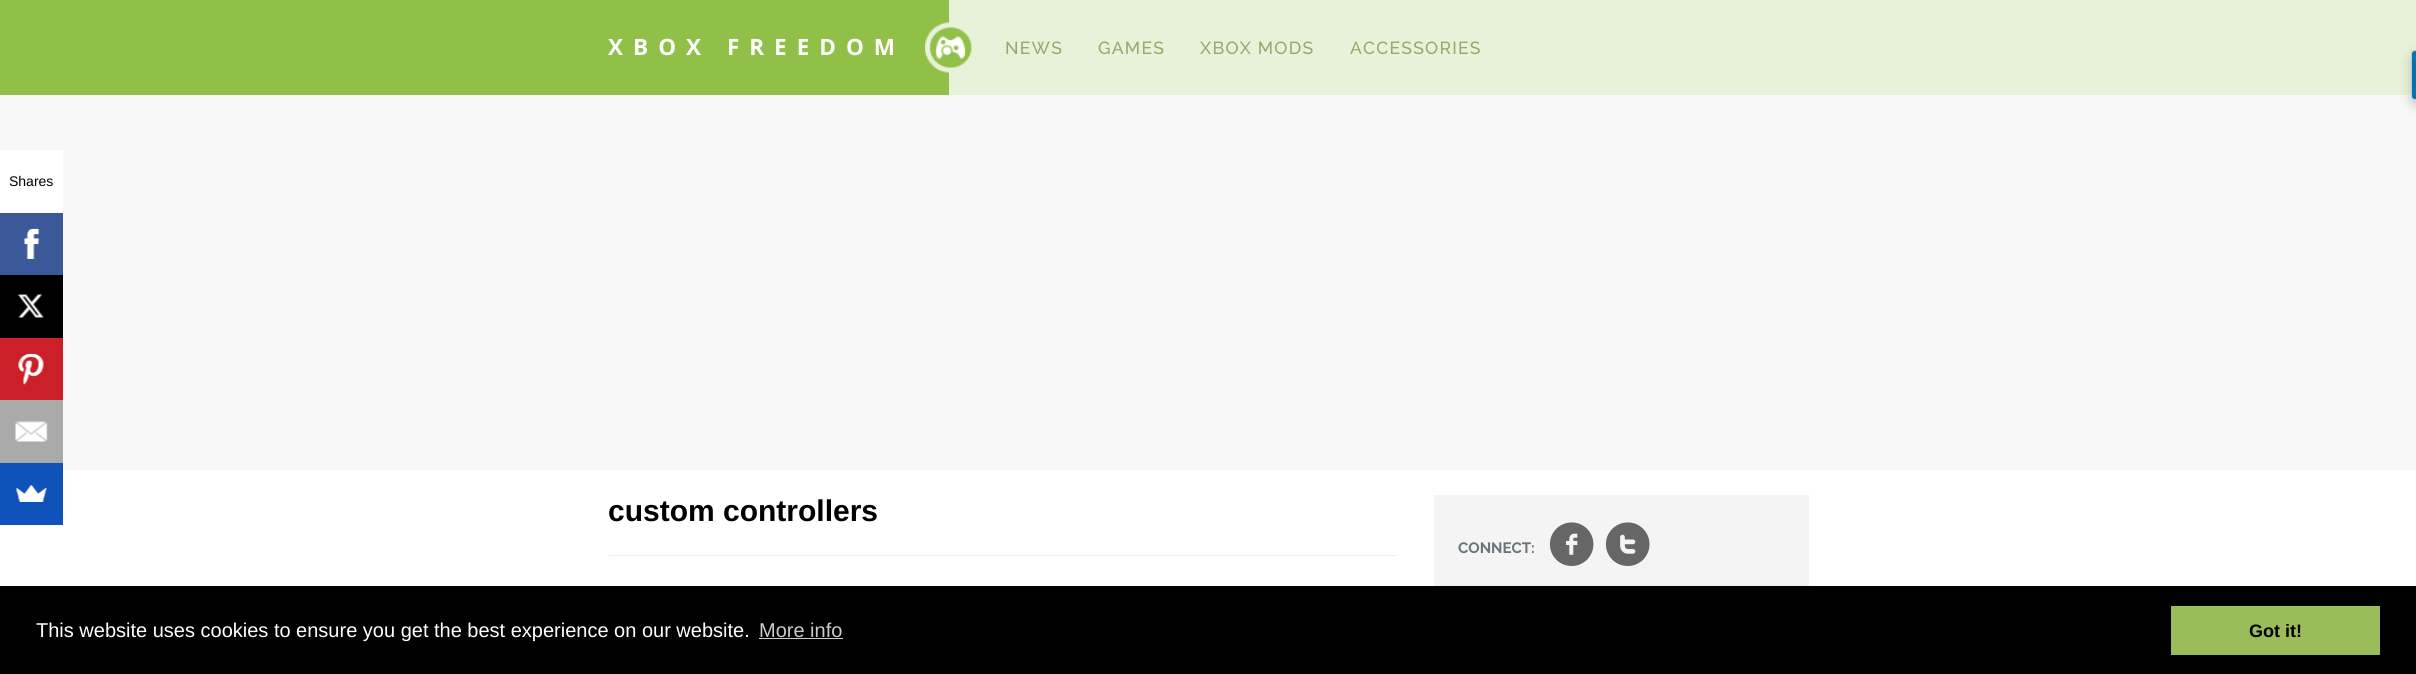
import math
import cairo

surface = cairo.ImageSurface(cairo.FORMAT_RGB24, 2416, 674)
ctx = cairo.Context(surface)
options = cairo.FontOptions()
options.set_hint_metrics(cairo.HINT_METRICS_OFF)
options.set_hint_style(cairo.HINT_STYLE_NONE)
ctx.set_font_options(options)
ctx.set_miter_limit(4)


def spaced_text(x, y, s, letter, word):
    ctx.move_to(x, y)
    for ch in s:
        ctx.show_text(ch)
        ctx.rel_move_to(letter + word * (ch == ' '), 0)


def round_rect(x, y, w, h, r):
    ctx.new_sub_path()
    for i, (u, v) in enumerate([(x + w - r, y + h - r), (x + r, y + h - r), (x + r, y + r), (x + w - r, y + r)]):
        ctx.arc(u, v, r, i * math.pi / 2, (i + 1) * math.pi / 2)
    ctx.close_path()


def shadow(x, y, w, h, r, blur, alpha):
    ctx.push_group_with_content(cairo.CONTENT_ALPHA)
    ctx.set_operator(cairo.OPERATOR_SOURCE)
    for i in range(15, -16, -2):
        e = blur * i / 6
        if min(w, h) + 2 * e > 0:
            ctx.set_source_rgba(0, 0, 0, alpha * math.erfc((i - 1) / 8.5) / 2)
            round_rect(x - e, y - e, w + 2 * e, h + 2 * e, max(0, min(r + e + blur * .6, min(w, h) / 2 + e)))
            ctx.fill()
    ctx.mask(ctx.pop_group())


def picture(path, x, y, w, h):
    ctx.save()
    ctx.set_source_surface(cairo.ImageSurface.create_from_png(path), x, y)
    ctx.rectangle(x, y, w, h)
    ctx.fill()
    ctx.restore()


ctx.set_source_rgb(1, 1, 1)
ctx.paint()
ctx.set_source_rgb(0.969, 0.969, 0.969)
ctx.rectangle(0, 95, 2416, 375)
ctx.fill()
ctx.set_source_rgb(1, 1, 1)
ctx.rectangle(0, 150, 63, 63)
ctx.fill()
ctx.select_font_face("Liberation Sans")
ctx.set_font_size(14)
ctx.set_source_rgb(0, 0, 0)
ctx.move_to(9, 186)
ctx.show_text("Shares")
ctx.set_source_rgb(0.231, 0.349, 0.596)
ctx.rectangle(0, 213, 63, 62)
ctx.fill()
picture("img1.png", 24, 228, 16, 31)
ctx.set_source_rgb(0, 0, 0)
ctx.rectangle(0, 275, 63, 63)
ctx.fill()
picture("img2.png", 17, 294, 27, 24)
ctx.set_source_rgb(0.796, 0.125, 0.153)
ctx.rectangle(0, 338, 63, 62)
ctx.fill()
picture("img3.png", 18, 353, 26, 32)
ctx.set_source_rgb(0.667, 0.667, 0.667)
ctx.rectangle(0, 400, 63, 63)
ctx.fill()
picture("img4.png", 15, 421, 33, 21)
ctx.set_source_rgb(0.059, 0.322, 0.729)
ctx.rectangle(0, 463, 63, 62)
ctx.fill()
picture("img5.png", 15, 485, 32, 17)
ctx.set_source_rgb(0.91, 0.949, 0.847)
ctx.rectangle(949, 0, 1467, 95)
ctx.fill()
ctx.set_source_rgb(0.565, 0.753, 0.278)
ctx.rectangle(0, 0, 949, 95)
ctx.fill()
ctx.select_font_face("Open Sans", cairo.FONT_SLANT_NORMAL, cairo.FONT_WEIGHT_BOLD)
ctx.set_font_size(22.5)
ctx.set_source_rgb(1, 1, 1)
spaced_text(608, 55, "XBOX FREEDOM", 10, 0)
picture("img6.png", 925, 22, 47, 51)
ctx.select_font_face("Raleway Medium")
ctx.set_font_size(17.5)
ctx.set_source_rgb(0.569, 0.671, 0.42)
spaced_text(1005, 54, "NEWS", 1.25, 0)
spaced_text(1098, 54, "GAMES", 1.25, 0)
spaced_text(1200, 54, "XBOX MODS", 1.25, 0)
spaced_text(1350, 54, "ACCESSORIES", 1.25, 0)
ctx.set_source_rgb(0.929, 0.929, 0.929)
ctx.rectangle(609, 555, 787, 1)
ctx.fill()
ctx.select_font_face("Liberation Sans", cairo.FONT_SLANT_NORMAL, cairo.FONT_WEIGHT_BOLD)
ctx.set_font_size(30)
ctx.set_source_rgb(0, 0, 0)
ctx.move_to(608, 521)
ctx.show_text("custom controllers")
ctx.set_source_rgb(0.957, 0.957, 0.957)
ctx.rectangle(1434, 495, 375, 91)
ctx.fill()
ctx.select_font_face("Raleway", cairo.FONT_SLANT_NORMAL, cairo.FONT_WEIGHT_BOLD)
ctx.set_font_size(15)
ctx.set_source_rgb(0.416, 0.459, 0.478)
ctx.move_to(1458, 553)
ctx.show_text("CONNECT:")
ctx.select_font_face("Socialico")
ctx.set_font_size(62)
ctx.set_source_rgb(0.4, 0.4, 0.4)
ctx.move_to(1547, 566)
ctx.show_text("f")
ctx.move_to(1603, 566)
ctx.show_text("t")
ctx.set_source_rgb(0, 0, 0)
shadow(2411, 55, 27, 50, 4, 6, 0.2)
ctx.set_source_rgb(0, 0.451, 0.718)
ctx.new_path()
ctx.move_to(2415, 50.5)
ctx.line_to(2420.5, 50.5)
ctx.line_to(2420.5, 99.5)
ctx.line_to(2415, 99.5)
ctx.curve_to(2413, 99.5, 2411.5, 98, 2411.5, 96)
ctx.line_to(2411.5, 54)
ctx.curve_to(2411.5, 52, 2413, 50.5, 2415, 50.5)
ctx.close_path()
ctx.fill_preserve()
ctx.set_source_rgb(0.8, 0.8, 0.8)
ctx.set_line_width(1)
ctx.stroke()
ctx.set_source_rgb(0, 0, 0)
ctx.rectangle(0, 586, 2416, 88)
ctx.fill()
ctx.select_font_face("Liberation Sans")
ctx.set_font_size(20)
ctx.set_source_rgb(1, 1, 1)
ctx.move_to(36, 637)
ctx.show_text("This website uses cookies to ensure you get the best experience on our website.")
ctx.set_source_rgb(0.8, 0.8, 0.8)
ctx.move_to(759, 637)
ctx.show_text("More info")
ctx.rectangle(759, 638, 84, 1)
ctx.fill()
ctx.set_source_rgb(0.604, 0.741, 0.349)
ctx.rectangle(2171, 606, 209, 49)
ctx.fill()
ctx.select_font_face("Liberation Sans", cairo.FONT_SLANT_NORMAL, cairo.FONT_WEIGHT_BOLD)
ctx.set_font_size(18)
ctx.set_source_rgb(0, 0, 0)
ctx.move_to(2249, 637)
ctx.show_text("Got it!")
surface.write_to_png("page.png")
